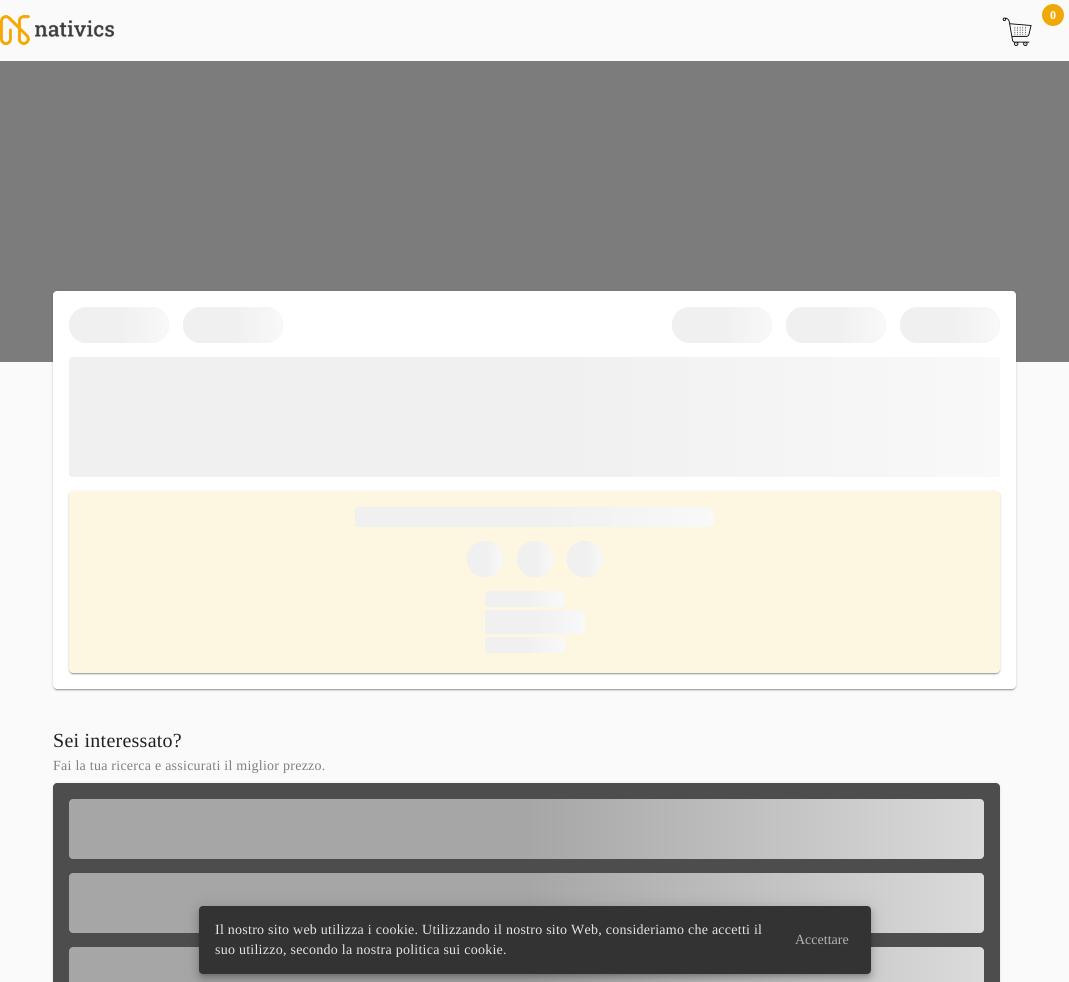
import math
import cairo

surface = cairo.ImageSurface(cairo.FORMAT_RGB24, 1069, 982)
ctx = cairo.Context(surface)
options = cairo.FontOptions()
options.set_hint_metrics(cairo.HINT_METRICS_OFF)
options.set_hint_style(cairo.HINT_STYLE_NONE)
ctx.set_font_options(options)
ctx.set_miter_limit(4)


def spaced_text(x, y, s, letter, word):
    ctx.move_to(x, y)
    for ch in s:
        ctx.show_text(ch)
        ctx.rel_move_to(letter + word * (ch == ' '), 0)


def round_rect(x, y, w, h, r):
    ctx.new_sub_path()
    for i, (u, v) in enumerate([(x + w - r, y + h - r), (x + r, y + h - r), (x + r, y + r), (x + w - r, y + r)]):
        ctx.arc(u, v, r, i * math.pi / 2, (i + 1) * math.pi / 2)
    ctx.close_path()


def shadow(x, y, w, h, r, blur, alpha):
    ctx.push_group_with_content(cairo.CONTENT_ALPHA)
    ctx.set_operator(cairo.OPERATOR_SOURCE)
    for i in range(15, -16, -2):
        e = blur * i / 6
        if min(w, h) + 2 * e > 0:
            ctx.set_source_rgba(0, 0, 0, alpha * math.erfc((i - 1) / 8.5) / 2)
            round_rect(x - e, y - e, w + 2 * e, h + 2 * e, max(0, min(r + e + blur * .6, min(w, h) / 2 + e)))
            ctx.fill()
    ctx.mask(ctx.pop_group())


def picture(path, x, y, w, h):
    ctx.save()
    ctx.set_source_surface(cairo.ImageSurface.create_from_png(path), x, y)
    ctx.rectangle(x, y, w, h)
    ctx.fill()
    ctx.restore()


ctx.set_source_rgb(0.98, 0.98, 0.98)
ctx.paint()
picture("img1.png", 0, 15, 114, 30)
ctx.set_source_rgb(0.941, 0.659, 0.016)
ctx.arc(1053, 15, 11, 0, 2 * math.pi)
ctx.fill()
ctx.select_font_face("Liberation Serif", cairo.FONT_SLANT_NORMAL, cairo.FONT_WEIGHT_BOLD)
ctx.set_font_size(12)
ctx.set_source_rgb(1, 1, 1)
ctx.move_to(1050, 19)
ctx.show_text("0")
picture("img2.png", 1002, 17, 30, 29)
ctx.set_source_rgb(0.486, 0.486, 0.486)
ctx.rectangle(0, 61, 1069, 301)
ctx.fill()
ctx.set_source_rgb(0, 0, 0)
shadow(53, 292, 963, 398, 4, 1.5, 0.12)
shadow(53, 292, 963, 398, 4, 0.5, 0.14)
shadow(54, 294, 961, 396, 3, 0.5, 0.2)
ctx.set_source_rgb(1, 1, 1)
round_rect(53, 291, 963, 398, 4)
ctx.fill()
ctx.set_source_rgb(0.878, 0.878, 0.878)
round_rect(69, 307, 100, 36, 18)
ctx.fill()
gradient = cairo.LinearGradient(69, 325, 269, 325)
gradient.add_color_stop_rgba(0.25, 1, 1, 1, 0.5)
gradient.add_color_stop_rgba(0.5, 1, 1, 1, 0.8)
gradient.add_color_stop_rgba(0.75, 1, 1, 1, 0.5)
ctx.set_source(gradient)
round_rect(69, 307, 100, 36, 18)
ctx.fill()
ctx.set_source_rgb(0.878, 0.878, 0.878)
round_rect(183, 307, 100, 36, 18)
ctx.fill()
gradient = cairo.LinearGradient(183, 325, 383, 325)
gradient.add_color_stop_rgba(0.25, 1, 1, 1, 0.5)
gradient.add_color_stop_rgba(0.5, 1, 1, 1, 0.8)
gradient.add_color_stop_rgba(0.75, 1, 1, 1, 0.5)
ctx.set_source(gradient)
round_rect(183, 307, 100, 36, 18)
ctx.fill()
ctx.set_source_rgb(0.878, 0.878, 0.878)
round_rect(672, 307, 100, 36, 18)
ctx.fill()
gradient = cairo.LinearGradient(672, 325, 872, 325)
gradient.add_color_stop_rgba(0.25, 1, 1, 1, 0.5)
gradient.add_color_stop_rgba(0.5, 1, 1, 1, 0.8)
gradient.add_color_stop_rgba(0.75, 1, 1, 1, 0.5)
ctx.set_source(gradient)
round_rect(672, 307, 100, 36, 18)
ctx.fill()
ctx.set_source_rgb(0.878, 0.878, 0.878)
round_rect(786, 307, 100, 36, 18)
ctx.fill()
gradient = cairo.LinearGradient(786, 325, 986, 325)
gradient.add_color_stop_rgba(0.25, 1, 1, 1, 0.5)
gradient.add_color_stop_rgba(0.5, 1, 1, 1, 0.8)
gradient.add_color_stop_rgba(0.75, 1, 1, 1, 0.5)
ctx.set_source(gradient)
round_rect(786, 307, 100, 36, 18)
ctx.fill()
ctx.set_source_rgb(0.878, 0.878, 0.878)
round_rect(900, 307, 100, 36, 18)
ctx.fill()
gradient = cairo.LinearGradient(900, 325, 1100, 325)
gradient.add_color_stop_rgba(0.25, 1, 1, 1, 0.5)
gradient.add_color_stop_rgba(0.5, 1, 1, 1, 0.8)
gradient.add_color_stop_rgba(0.75, 1, 1, 1, 0.5)
ctx.set_source(gradient)
round_rect(900, 307, 100, 36, 18)
ctx.fill()
ctx.set_source_rgb(0.878, 0.878, 0.878)
round_rect(69, 357, 931, 120, 4)
ctx.fill()
gradient = cairo.LinearGradient(69, 417, 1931, 417)
gradient.add_color_stop_rgba(0.25, 1, 1, 1, 0.5)
gradient.add_color_stop_rgba(0.5, 1, 1, 1, 0.8)
gradient.add_color_stop_rgba(0.75, 1, 1, 1, 0.5)
ctx.set_source(gradient)
round_rect(69, 357, 931, 120, 4)
ctx.fill()
ctx.set_source_rgb(0, 0, 0)
shadow(69, 492, 931, 182, 4, 1.5, 0.12)
shadow(69, 492, 931, 182, 4, 0.5, 0.14)
shadow(70, 494, 929, 180, 3, 0.5, 0.2)
ctx.set_source_rgb(0.992, 0.961, 0.882)
round_rect(69, 491, 931, 182, 4)
ctx.fill()
ctx.set_source_rgb(0.878, 0.878, 0.878)
round_rect(355, 507, 359, 20, 4)
ctx.fill()
gradient = cairo.LinearGradient(355, 517, 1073, 517)
gradient.add_color_stop_rgba(0.25, 1, 1, 1, 0.5)
gradient.add_color_stop_rgba(0.5, 1, 1, 1, 0.8)
gradient.add_color_stop_rgba(0.75, 1, 1, 1, 0.5)
ctx.set_source(gradient)
round_rect(355, 507, 359, 20, 4)
ctx.fill()
ctx.set_source_rgb(0.878, 0.878, 0.878)
ctx.arc(485, 559, 18, 0, 2 * math.pi)
ctx.fill()
gradient = cairo.LinearGradient(467, 559, 539, 559)
gradient.add_color_stop_rgba(0.25, 1, 1, 1, 0.5)
gradient.add_color_stop_rgba(0.5, 1, 1, 1, 0.8)
gradient.add_color_stop_rgba(0.75, 1, 1, 1, 0.5)
ctx.set_source(gradient)
ctx.arc(485, 559, 18, 0, 2 * math.pi)
ctx.fill()
ctx.set_source_rgb(0.878, 0.878, 0.878)
ctx.arc(535, 559, 18, 0, 2 * math.pi)
ctx.fill()
gradient = cairo.LinearGradient(517, 559, 589, 559)
gradient.add_color_stop_rgba(0.25, 1, 1, 1, 0.5)
gradient.add_color_stop_rgba(0.5, 1, 1, 1, 0.8)
gradient.add_color_stop_rgba(0.75, 1, 1, 1, 0.5)
ctx.set_source(gradient)
ctx.arc(535, 559, 18, 0, 2 * math.pi)
ctx.fill()
ctx.set_source_rgb(0.878, 0.878, 0.878)
ctx.arc(585, 559, 18, 0, 2 * math.pi)
ctx.fill()
gradient = cairo.LinearGradient(567, 559, 639, 559)
gradient.add_color_stop_rgba(0.25, 1, 1, 1, 0.5)
gradient.add_color_stop_rgba(0.5, 1, 1, 1, 0.8)
gradient.add_color_stop_rgba(0.75, 1, 1, 1, 0.5)
ctx.set_source(gradient)
ctx.arc(585, 559, 18, 0, 2 * math.pi)
ctx.fill()
ctx.set_source_rgb(0.878, 0.878, 0.878)
round_rect(485, 591, 80, 16, 4)
ctx.fill()
gradient = cairo.LinearGradient(485, 599, 645, 599)
gradient.add_color_stop_rgba(0.25, 1, 1, 1, 0.5)
gradient.add_color_stop_rgba(0.5, 1, 1, 1, 0.8)
gradient.add_color_stop_rgba(0.75, 1, 1, 1, 0.5)
ctx.set_source(gradient)
round_rect(485, 591, 80, 16, 4)
ctx.fill()
ctx.set_source_rgb(0.878, 0.878, 0.878)
round_rect(485, 610, 100, 24, 4)
ctx.fill()
gradient = cairo.LinearGradient(485, 622, 685, 622)
gradient.add_color_stop_rgba(0.25, 1, 1, 1, 0.5)
gradient.add_color_stop_rgba(0.5, 1, 1, 1, 0.8)
gradient.add_color_stop_rgba(0.75, 1, 1, 1, 0.5)
ctx.set_source(gradient)
round_rect(485, 610, 100, 24, 4)
ctx.fill()
ctx.set_source_rgb(0.878, 0.878, 0.878)
round_rect(485, 637, 80, 16, 4)
ctx.fill()
gradient = cairo.LinearGradient(485, 645, 645, 645)
gradient.add_color_stop_rgba(0.25, 1, 1, 1, 0.5)
gradient.add_color_stop_rgba(0.5, 1, 1, 1, 0.8)
gradient.add_color_stop_rgba(0.75, 1, 1, 1, 0.5)
ctx.set_source(gradient)
round_rect(485, 637, 80, 16, 4)
ctx.fill()
ctx.select_font_face("Liberation Serif")
ctx.set_font_size(20)
ctx.set_source_rgb(0.129, 0.129, 0.129)
spaced_text(53, 747, "Sei interessato?", 0.25, 0)
ctx.set_font_size(14)
ctx.set_source_rgb(0.502, 0.502, 0.502)
spaced_text(53, 770, "Fai la tua ricerca e assicurati il miglior prezzo.", 0.25, 0)
ctx.set_source_rgb(0, 0, 0)
shadow(53, 784, 947, 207, 4, 1.5, 0.12)
ctx.set_source_rgb(0.302, 0.302, 0.302)
ctx.new_path()
ctx.move_to(57, 783)
ctx.line_to(996, 783)
ctx.curve_to(998, 783, 1000, 785, 1000, 787)
ctx.line_to(1000, 982)
ctx.line_to(53, 982)
ctx.line_to(53, 787)
ctx.curve_to(53, 785, 55, 783, 57, 783)
ctx.close_path()
ctx.fill()
gradient = cairo.LinearGradient(69, 829, 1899, 829)
gradient.add_color_stop_rgba(0.25, 0.651, 0.651, 0.651, 1)
gradient.add_color_stop_rgba(0.5, 0.859, 0.859, 0.859, 1)
gradient.add_color_stop_rgba(0.75, 0.651, 0.651, 0.651, 1)
ctx.set_source(gradient)
round_rect(69, 799, 915, 60, 4)
ctx.fill()
gradient = cairo.LinearGradient(69, 903, 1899, 903)
gradient.add_color_stop_rgba(0.25, 0.651, 0.651, 0.651, 1)
gradient.add_color_stop_rgba(0.5, 0.859, 0.859, 0.859, 1)
gradient.add_color_stop_rgba(0.75, 0.651, 0.651, 0.651, 1)
ctx.set_source(gradient)
round_rect(69, 873, 915, 60, 4)
ctx.fill()
gradient = cairo.LinearGradient(69, 978, 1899, 978)
gradient.add_color_stop_rgba(0.25, 0.651, 0.651, 0.651, 1)
gradient.add_color_stop_rgba(0.5, 0.859, 0.859, 0.859, 1)
gradient.add_color_stop_rgba(0.75, 0.651, 0.651, 0.651, 1)
ctx.set_source(gradient)
ctx.new_path()
ctx.move_to(73, 947)
ctx.line_to(980, 947)
ctx.curve_to(982, 947, 984, 949, 984, 951)
ctx.line_to(984, 982)
ctx.line_to(69, 982)
ctx.line_to(69, 951)
ctx.curve_to(69, 949, 71, 947, 73, 947)
ctx.close_path()
ctx.fill()
ctx.set_source_rgb(0, 0, 0)
shadow(199, 907, 672, 68, 4, 9, 0.12)
shadow(199, 912, 672, 68, 4, 5, 0.14)
shadow(200, 910, 670, 66, 3, 2.5, 0.2)
ctx.set_source_rgb(0.2, 0.2, 0.2)
round_rect(199, 906, 672, 68, 4)
ctx.fill()
ctx.set_source_rgb(0.894, 0.894, 0.894)
spaced_text(215, 934, "Il nostro sito web utilizza i cookie. Utilizzando il nostro sito Web, consideriamo che accetti il", 0.25, 0)
spaced_text(215, 954, "suo utilizzo, secondo la nostra politica sui cookie.", 0.25, 0)
ctx.set_source_rgb(0.702, 0.702, 0.702)
ctx.move_to(795, 944)
ctx.show_text("Accettare")
surface.write_to_png("page.png")
